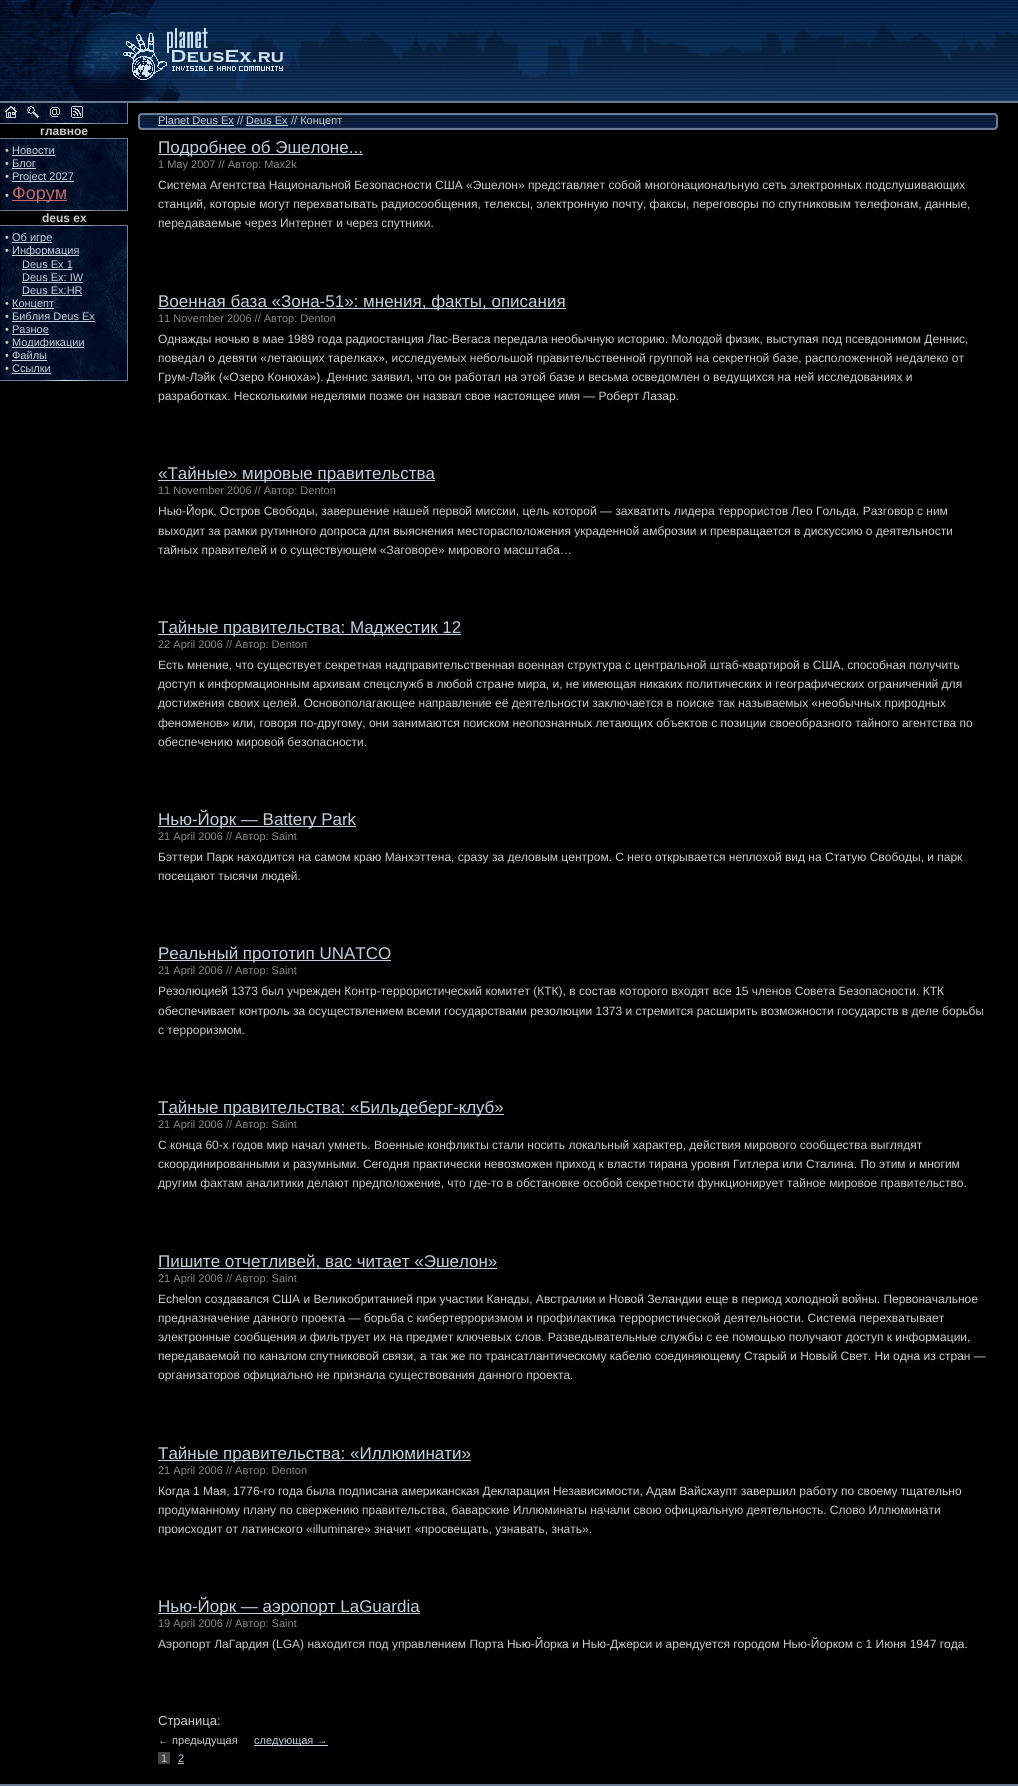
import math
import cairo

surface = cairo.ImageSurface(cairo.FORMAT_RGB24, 1018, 1786)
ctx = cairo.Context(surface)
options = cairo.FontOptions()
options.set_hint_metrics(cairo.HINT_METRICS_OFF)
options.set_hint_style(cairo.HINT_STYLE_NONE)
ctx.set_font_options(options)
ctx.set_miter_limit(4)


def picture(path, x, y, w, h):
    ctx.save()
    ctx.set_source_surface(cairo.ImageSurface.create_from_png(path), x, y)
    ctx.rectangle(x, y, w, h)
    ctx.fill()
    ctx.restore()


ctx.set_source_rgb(0, 0, 0)
ctx.paint()
picture("img1.png", 301, 0, 717, 103)
picture("img2.png", 0, 0, 301, 103)
picture("img3.png", 0, 103, 128, 21)
picture("img4.png", 5, 106, 78, 12)
picture("img5.png", 0, 123, 127, 1)
ctx.select_font_face("Liberation Sans", cairo.FONT_SLANT_NORMAL, cairo.FONT_WEIGHT_BOLD)
ctx.set_font_size(12)
ctx.set_source_rgb(0.8, 0.8, 0.8)
ctx.move_to(40, 135)
ctx.show_text("главное")
picture("img6.png", 0, 138, 128, 73)
picture("img5.png", 0, 138, 127, 1)
ctx.select_font_face("Liberation Sans")
ctx.set_font_size(11)
ctx.move_to(5, 154)
ctx.show_text("•")
ctx.set_source_rgb(0.765, 0.816, 0.859)
ctx.move_to(12, 154)
ctx.show_text("Новости")
ctx.rectangle(12, 155, 43, 1)
ctx.fill()
ctx.set_source_rgb(0.8, 0.8, 0.8)
ctx.move_to(5, 167)
ctx.show_text("•")
ctx.set_source_rgb(0.765, 0.816, 0.859)
ctx.move_to(12, 167)
ctx.show_text("Блог")
ctx.rectangle(12, 168, 24, 1)
ctx.fill()
ctx.set_source_rgb(0.8, 0.8, 0.8)
ctx.move_to(5, 180)
ctx.show_text("•")
ctx.set_source_rgb(0.765, 0.816, 0.859)
ctx.rectangle(12, 181, 62, 1)
ctx.fill()
ctx.move_to(12, 180)
ctx.show_text("Project 2027")
ctx.set_source_rgb(0.8, 0.8, 0.8)
ctx.move_to(5, 199)
ctx.show_text("•")
ctx.set_source_rgb(0.765, 0.4, 0.4)
ctx.rectangle(12, 200, 55, 1)
ctx.fill()
ctx.set_font_size(18)
ctx.move_to(12, 199)
ctx.show_text("Форум")
picture("img5.png", 0, 210, 127, 1)
ctx.select_font_face("Liberation Sans", cairo.FONT_SLANT_NORMAL, cairo.FONT_WEIGHT_BOLD)
ctx.set_font_size(12)
ctx.set_source_rgb(0.8, 0.8, 0.8)
ctx.move_to(42, 222)
ctx.show_text("deus ex")
picture("img7.png", 0, 226, 128, 155)
picture("img8.png", 0, 225, 128, 1)
ctx.select_font_face("Liberation Sans")
ctx.set_font_size(11)
ctx.move_to(5, 241)
ctx.show_text("•")
ctx.set_source_rgb(0.765, 0.816, 0.859)
ctx.rectangle(12, 242, 40, 1)
ctx.fill()
ctx.move_to(12, 241)
ctx.show_text("Об игре")
ctx.set_source_rgb(0.8, 0.8, 0.8)
ctx.move_to(5, 254)
ctx.show_text("•")
ctx.set_source_rgb(0.765, 0.816, 0.859)
ctx.rectangle(12, 255, 67, 1)
ctx.fill()
ctx.move_to(12, 254)
ctx.show_text("Информация")
ctx.move_to(22, 268)
ctx.show_text("Deus Ex 1")
ctx.rectangle(22, 269, 50, 1)
ctx.fill()
ctx.move_to(22, 281)
ctx.show_text("Deus Ex: IW")
ctx.rectangle(22, 282, 61, 1)
ctx.fill()
ctx.move_to(22, 294)
ctx.show_text("Deus Ex:HR")
ctx.rectangle(22, 295, 60, 1)
ctx.fill()
ctx.set_source_rgb(0.8, 0.8, 0.8)
ctx.move_to(5, 307)
ctx.show_text("•")
ctx.set_source_rgb(0.765, 0.816, 0.859)
ctx.rectangle(12, 308, 42, 1)
ctx.fill()
ctx.move_to(12, 307)
ctx.show_text("Концепт")
ctx.set_source_rgb(0.8, 0.8, 0.8)
ctx.move_to(5, 320)
ctx.show_text("•")
ctx.set_source_rgb(0.765, 0.816, 0.859)
ctx.move_to(12, 320)
ctx.show_text("Библия Deus Ex")
ctx.rectangle(12, 321, 83, 1)
ctx.fill()
ctx.set_source_rgb(0.8, 0.8, 0.8)
ctx.move_to(5, 333)
ctx.show_text("•")
ctx.set_source_rgb(0.765, 0.816, 0.859)
ctx.move_to(12, 333)
ctx.show_text("Разное")
ctx.rectangle(12, 334, 37, 1)
ctx.fill()
ctx.set_source_rgb(0.8, 0.8, 0.8)
ctx.move_to(5, 346)
ctx.show_text("•")
ctx.set_source_rgb(0.765, 0.816, 0.859)
ctx.rectangle(12, 347, 72, 1)
ctx.fill()
ctx.move_to(12, 346)
ctx.show_text("Модификации")
ctx.set_source_rgb(0.8, 0.8, 0.8)
ctx.move_to(5, 359)
ctx.show_text("•")
ctx.set_source_rgb(0.765, 0.816, 0.859)
ctx.move_to(12, 359)
ctx.show_text("Файлы")
ctx.rectangle(12, 360, 35, 1)
ctx.fill()
ctx.set_source_rgb(0.8, 0.8, 0.8)
ctx.move_to(5, 372)
ctx.show_text("•")
ctx.set_source_rgb(0.765, 0.816, 0.859)
ctx.move_to(12, 372)
ctx.show_text("Ссылки")
ctx.rectangle(12, 373, 39, 1)
ctx.fill()
picture("img5.png", 0, 380, 127, 1)
picture("img9.png", 148, 113, 840, 17)
picture("img10.png", 138, 113, 10, 17)
ctx.move_to(158, 124)
ctx.show_text("Planet Deus Ex")
ctx.rectangle(158, 125, 76, 1)
ctx.fill()
ctx.set_source_rgb(0.8, 0.8, 0.8)
ctx.move_to(237, 124)
ctx.show_text("//")
ctx.set_source_rgb(0.765, 0.816, 0.859)
ctx.move_to(246, 124)
ctx.show_text("Deus Ex")
ctx.rectangle(246, 125, 42, 1)
ctx.fill()
ctx.set_source_rgb(0.8, 0.8, 0.8)
ctx.move_to(291, 124)
ctx.show_text("// Концепт")
picture("img11.png", 988, 113, 10, 17)
ctx.set_source_rgb(0.765, 0.816, 0.859)
ctx.rectangle(158, 154, 205, 1)
ctx.fill()
ctx.set_font_size(17)
ctx.move_to(158, 153)
ctx.show_text("Подробнее об Эшелоне...")
ctx.set_font_size(11)
ctx.set_source_rgb(0.533, 0.533, 0.533)
ctx.move_to(158, 168)
ctx.show_text("1 May 2007 // Автор: Max2k")
ctx.set_font_size(12)
ctx.set_source_rgb(0.8, 0.8, 0.8)
ctx.move_to(158, 189)
ctx.show_text("Система Агентства Национальной Безопасности США «Эшелон» представляет собой многонациональную сеть электронных подслушивающих")
ctx.move_to(158, 208)
ctx.show_text("станций, которые могут перехватывать радиосообщения, телексы, электронную почту, факсы, переговоры по спутниковым телефонам, данные,")
ctx.move_to(158, 227)
ctx.show_text("передаваемые через Интернет и через спутники.")
ctx.set_source_rgb(0.765, 0.816, 0.859)
ctx.rectangle(158, 308, 408, 1)
ctx.fill()
ctx.set_font_size(17)
ctx.move_to(158, 307)
ctx.show_text("Военная база «Зона-51»: мнения, факты, описания")
ctx.set_font_size(11)
ctx.set_source_rgb(0.533, 0.533, 0.533)
ctx.move_to(158, 322)
ctx.show_text("11 November 2006 // Автор: Denton")
ctx.set_font_size(12)
ctx.set_source_rgb(0.8, 0.8, 0.8)
ctx.move_to(158, 343)
ctx.show_text("Однажды ночью в мае 1989 года радиостанция Лас-Вегаса передала необычную историю. Молодой физик, выступая под псевдонимом Деннис,")
ctx.move_to(158, 362)
ctx.show_text("поведал о девяти «летающих тарелках», исследуемых небольшой правительственной группой на секретной базе, расположенной недалеко от")
ctx.move_to(158, 381)
ctx.show_text("Грум-Лэйк («Озеро Конюха»). Деннис заявил, что он работал на этой базе и весьма осведомлен о ведущихся на ней исследованиях и")
ctx.move_to(158, 400)
ctx.show_text("разработках. Несколькими неделями позже он назвал свое настоящее имя — Роберт Лазар.")
ctx.set_source_rgb(0.765, 0.816, 0.859)
ctx.rectangle(158, 480, 277, 1)
ctx.fill()
ctx.set_font_size(17)
ctx.move_to(158, 479)
ctx.show_text("«Тайные» мировые правительства")
ctx.set_font_size(11)
ctx.set_source_rgb(0.533, 0.533, 0.533)
ctx.move_to(158, 494)
ctx.show_text("11 November 2006 // Автор: Denton")
ctx.set_font_size(12)
ctx.set_source_rgb(0.8, 0.8, 0.8)
ctx.move_to(158, 515)
ctx.show_text("Нью-Йорк, Остров Свободы, завершение нашей первой миссии, цель которой — захватить лидера террористов Лео Гольда. Разговор с ним")
ctx.move_to(158, 535)
ctx.show_text("выходит за рамки рутинного допроса для выяснения месторасположения украденной амброзии и превращается в дискуссию о деятельности")
ctx.move_to(158, 554)
ctx.show_text("тайных правителей и о существующем «Заговоре» мирового масштаба…")
ctx.set_source_rgb(0.765, 0.816, 0.859)
ctx.rectangle(158, 634, 303, 1)
ctx.fill()
ctx.set_font_size(17)
ctx.move_to(158, 633)
ctx.show_text("Тайные правительства: Маджестик 12")
ctx.set_font_size(11)
ctx.set_source_rgb(0.533, 0.533, 0.533)
ctx.move_to(158, 648)
ctx.show_text("22 April 2006 // Автор: Denton")
ctx.set_font_size(12)
ctx.set_source_rgb(0.8, 0.8, 0.8)
ctx.move_to(158, 669)
ctx.show_text("Есть мнение, что существует секретная надправительственная военная структура с центральной штаб-квартирой в США, способная получить")
ctx.move_to(158, 688)
ctx.show_text("доступ к информационным архивам спецслужб в любой стране мира, и, не имеющая никаких политических и географических ограничений для")
ctx.move_to(158, 707)
ctx.show_text("достижения своих целей. Основополагающее направление её деятельности заключается в поиске так называемых «необычных природных")
ctx.move_to(158, 727)
ctx.show_text("феноменов» или, говоря по-другому, они занимаются поиском неопознанных летающих объектов с позиции своеобразного тайного агентства по")
ctx.move_to(158, 746)
ctx.show_text("обеспечению мировой безопасности.")
ctx.set_source_rgb(0.765, 0.816, 0.859)
ctx.rectangle(158, 826, 198, 1)
ctx.fill()
ctx.set_font_size(17)
ctx.move_to(158, 825)
ctx.show_text("Нью-Йорк — Battery Park")
ctx.set_font_size(11)
ctx.set_source_rgb(0.533, 0.533, 0.533)
ctx.move_to(158, 840)
ctx.show_text("21 April 2006 // Автор: Saint")
ctx.set_font_size(12)
ctx.set_source_rgb(0.8, 0.8, 0.8)
ctx.move_to(158, 861)
ctx.show_text("Бэттери Парк находится на самом краю Манхэттена, сразу за деловым центром. С него открывается неплохой вид на Статую Свободы, и парк")
ctx.move_to(158, 880)
ctx.show_text("посещают тысячи людей.")
ctx.set_source_rgb(0.765, 0.816, 0.859)
ctx.rectangle(158, 960, 233, 1)
ctx.fill()
ctx.set_font_size(17)
ctx.move_to(158, 959)
ctx.show_text("Реальный прототип UNATCO")
ctx.set_font_size(11)
ctx.set_source_rgb(0.533, 0.533, 0.533)
ctx.move_to(158, 974)
ctx.show_text("21 April 2006 // Автор: Saint")
ctx.set_font_size(12)
ctx.set_source_rgb(0.8, 0.8, 0.8)
ctx.move_to(158, 995)
ctx.show_text("Резолюцией 1373 был учрежден Контр-террористический комитет (КТК), в состав которого входят все 15 членов Совета Безопасности. КТК")
ctx.move_to(158, 1015)
ctx.show_text("обеспечивает контроль за осуществлением всеми государствами резолюции 1373 и стремится расширить возможности государств в деле борьбы")
ctx.move_to(158, 1034)
ctx.show_text("с терроризмом.")
ctx.set_source_rgb(0.765, 0.816, 0.859)
ctx.rectangle(158, 1114, 346, 1)
ctx.fill()
ctx.set_font_size(17)
ctx.move_to(158, 1113)
ctx.show_text("Тайные правительства: «Бильдеберг-клуб»")
ctx.set_font_size(11)
ctx.set_source_rgb(0.533, 0.533, 0.533)
ctx.move_to(158, 1128)
ctx.show_text("21 April 2006 // Автор: Saint")
ctx.set_font_size(12)
ctx.set_source_rgb(0.8, 0.8, 0.8)
ctx.move_to(158, 1149)
ctx.show_text("С конца 60-х годов мир начал умнеть. Военные конфликты стали носить локальный характер, действия мирового сообщества выглядят")
ctx.move_to(158, 1168)
ctx.show_text("скоординированными и разумными. Сегодня практически невозможен приход к власти тирана уровня Гитлера или Сталина. По этим и многим")
ctx.move_to(158, 1187)
ctx.show_text("другим фактам аналитики делают предположение, что где-то в обстановке особой секретности функционирует тайное мировое правительство.")
ctx.set_source_rgb(0.765, 0.816, 0.859)
ctx.rectangle(158, 1268, 339, 1)
ctx.fill()
ctx.set_font_size(17)
ctx.move_to(158, 1267)
ctx.show_text("Пишите отчетливей, вас читает «Эшелон»")
ctx.set_font_size(11)
ctx.set_source_rgb(0.533, 0.533, 0.533)
ctx.move_to(158, 1282)
ctx.show_text("21 April 2006 // Автор: Saint")
ctx.set_font_size(12)
ctx.set_source_rgb(0.8, 0.8, 0.8)
ctx.move_to(158, 1303)
ctx.show_text("Echelon создавался США и Великобританией при участии Канады, Австралии и Новой Зеландии еще в период холодной войны. Первоначальное")
ctx.move_to(158, 1322)
ctx.show_text("предназначение данного проекта — борьба с кибертерроризмом и профилактика террористической деятельности. Система перехватывает")
ctx.move_to(158, 1341)
ctx.show_text("электронные сообщения и фильтрует их на предмет ключевых слов. Разведывательные службы с ее помощью получают доступ к информации,")
ctx.move_to(158, 1360)
ctx.show_text("передаваемой по каналом спутниковой связи, а так же по трансатлантическому кабелю соединяющему Старый и Новый Свет. Ни одна из стран —")
ctx.move_to(158, 1379)
ctx.show_text("организаторов официально не признала существования данного проекта.")
ctx.set_source_rgb(0.765, 0.816, 0.859)
ctx.rectangle(158, 1460, 313, 1)
ctx.fill()
ctx.set_font_size(17)
ctx.move_to(158, 1459)
ctx.show_text("Тайные правительства: «Иллюминати»")
ctx.set_font_size(11)
ctx.set_source_rgb(0.533, 0.533, 0.533)
ctx.move_to(158, 1474)
ctx.show_text("21 April 2006 // Автор: Denton")
ctx.set_font_size(12)
ctx.set_source_rgb(0.8, 0.8, 0.8)
ctx.move_to(158, 1495)
ctx.show_text("Когда 1 Мая, 1776-го года была подписана американская Декларация Независимости, Адам Вайсхаупт завершил работу по своему тщательно")
ctx.move_to(158, 1514)
ctx.show_text("продуманному плану по свержению правительства, баварские Иллюминаты начали свою официальную деятельность. Слово Иллюминати")
ctx.move_to(158, 1533)
ctx.show_text("происходит от латинского «illuminare» значит «просвещать, узнавать, знать».")
ctx.set_source_rgb(0.765, 0.816, 0.859)
ctx.rectangle(158, 1613, 262, 1)
ctx.fill()
ctx.set_font_size(17)
ctx.move_to(158, 1612)
ctx.show_text("Нью-Йорк — аэропорт LaGuardia")
ctx.set_font_size(11)
ctx.set_source_rgb(0.533, 0.533, 0.533)
ctx.move_to(158, 1627)
ctx.show_text("19 April 2006 // Автор: Saint")
ctx.set_font_size(12)
ctx.set_source_rgb(0.8, 0.8, 0.8)
ctx.move_to(158, 1648)
ctx.show_text("Аэропорт ЛаГардия (LGA) находится под управлением Порта Нью-Йорка и Нью-Джерси и арендуется городом Нью-Йорком с 1 Июня 1947 года.")
ctx.set_font_size(13)
ctx.move_to(158, 1725)
ctx.show_text("Страница:")
ctx.set_font_size(11)
ctx.move_to(158, 1744)
ctx.show_text("← предыдущая")
ctx.set_source_rgb(0.765, 0.816, 0.859)
ctx.rectangle(254, 1745, 74, 1)
ctx.fill()
ctx.move_to(254, 1744)
ctx.show_text("следующая →")
ctx.set_source_rgb(0.267, 0.267, 0.267)
ctx.rectangle(158, 1752, 12, 12)
ctx.fill()
ctx.set_source_rgb(0.8, 0.8, 0.8)
ctx.move_to(161, 1762)
ctx.show_text("1")
ctx.set_source_rgb(0.765, 0.816, 0.859)
ctx.move_to(178, 1762)
ctx.show_text("2")
ctx.rectangle(178, 1763, 6, 1)
ctx.fill()
ctx.set_source_rgb(0.416, 0.478, 0.569)
ctx.rectangle(0, 1784, 1018, 2)
ctx.fill()
surface.write_to_png("page.png")
